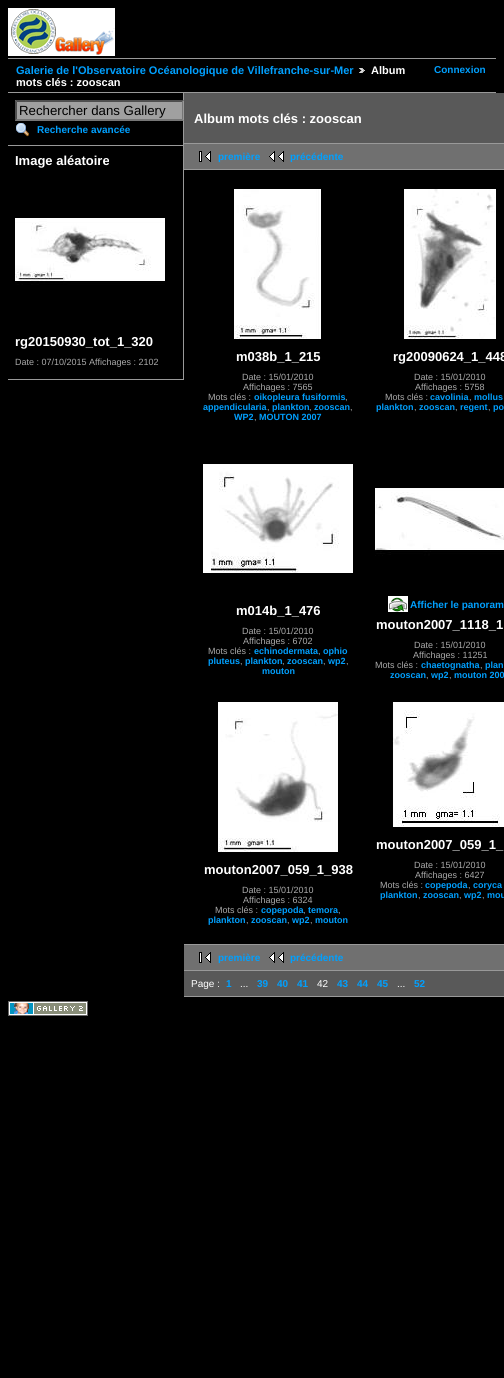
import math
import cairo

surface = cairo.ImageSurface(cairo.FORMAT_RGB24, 504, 1378)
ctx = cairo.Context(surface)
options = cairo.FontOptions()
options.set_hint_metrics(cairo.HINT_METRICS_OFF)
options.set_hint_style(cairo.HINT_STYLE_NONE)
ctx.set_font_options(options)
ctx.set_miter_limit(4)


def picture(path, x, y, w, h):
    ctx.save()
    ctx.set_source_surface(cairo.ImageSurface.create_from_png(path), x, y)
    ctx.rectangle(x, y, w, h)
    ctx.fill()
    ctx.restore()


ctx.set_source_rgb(0, 0, 0)
ctx.paint()
picture("img1.png", 8, 8, 107, 48)
ctx.set_source_rgb(0.6, 0.6, 0.6)
ctx.rectangle(8, 58, 488, 1)
ctx.fill()
ctx.rectangle(8, 92, 488, 1)
ctx.fill()
ctx.select_font_face("Liberation Sans", cairo.FONT_SLANT_NORMAL, cairo.FONT_WEIGHT_BOLD)
ctx.set_font_size(11)
ctx.set_source_rgb(0, 0.627, 1)
ctx.move_to(16, 74)
ctx.show_text("Galerie de l'Observatoire Océanologique de Villefranche-sur-Mer")
picture("img2.png", 359, 68, 6, 5)
ctx.set_source_rgb(1, 1, 1)
ctx.move_to(371, 74)
ctx.show_text("Album")
ctx.move_to(16, 86)
ctx.show_text("mots clés : zooscan")
ctx.set_font_size(10)
ctx.set_source_rgb(0, 0.627, 1)
ctx.move_to(434, 73)
ctx.show_text("Connexion")
ctx.set_source_rgb(0.6, 0.6, 0.6)
ctx.rectangle(183, 93, 1, 287)
ctx.fill()
ctx.rectangle(8, 145, 175, 1)
ctx.fill()
ctx.set_source_rgb(0.627, 0.627, 0.627)
ctx.rectangle(15, 100, 168, 21)
ctx.fill()
ctx.set_source_rgb(0.31, 0.31, 0.31)
ctx.new_path()
ctx.move_to(15, 100)
ctx.line_to(184, 100)
ctx.line_to(182, 102)
ctx.line_to(17, 102)
ctx.close_path()
ctx.fill()
ctx.save()
ctx.rectangle(8, 93, 175, 287)
ctx.clip()
ctx.set_source_rgb(0.463, 0.463, 0.463)
ctx.new_path()
ctx.move_to(184, 100)
ctx.line_to(184, 121)
ctx.line_to(182, 119)
ctx.line_to(182, 102)
ctx.close_path()
ctx.fill()
ctx.restore()
ctx.set_source_rgb(0.463, 0.463, 0.463)
ctx.new_path()
ctx.move_to(184, 121)
ctx.line_to(15, 121)
ctx.line_to(17, 119)
ctx.line_to(182, 119)
ctx.close_path()
ctx.fill()
ctx.set_source_rgb(0.31, 0.31, 0.31)
ctx.new_path()
ctx.move_to(15, 121)
ctx.line_to(15, 100)
ctx.line_to(17, 102)
ctx.line_to(17, 119)
ctx.close_path()
ctx.fill()
ctx.select_font_face("Liberation Sans")
ctx.set_font_size(13.25)
ctx.set_source_rgb(0, 0, 0)
ctx.move_to(19, 115)
ctx.show_text("Rechercher dans Gallery")
picture("img3.png", 16, 123, 13, 14)
ctx.select_font_face("Liberation Sans", cairo.FONT_SLANT_NORMAL, cairo.FONT_WEIGHT_BOLD)
ctx.set_font_size(10)
ctx.set_source_rgb(0, 0.627, 1)
ctx.move_to(37, 133)
ctx.show_text("Recherche avancée")
ctx.set_source_rgb(0.6, 0.6, 0.6)
ctx.rectangle(8, 379, 175, 1)
ctx.fill()
ctx.set_font_size(13)
ctx.set_source_rgb(1, 1, 1)
ctx.move_to(15, 165)
ctx.show_text("Image aléatoire")
picture("img4.png", 15, 218, 150, 67)
ctx.move_to(15, 346)
ctx.show_text("rg20150930_tot_1_320")
ctx.select_font_face("Liberation Sans")
ctx.set_font_size(9)
ctx.set_source_rgb(0.667, 0.667, 0.667)
ctx.move_to(15, 365)
ctx.show_text("Date : 07/10/2015 Affichages : 2102")
ctx.set_source_rgb(0.349, 0.349, 0.349)
ctx.rectangle(184, 93, 320, 50)
ctx.fill()
ctx.set_source_rgb(0.6, 0.6, 0.6)
ctx.rectangle(184, 143, 320, 1)
ctx.fill()
ctx.select_font_face("Liberation Sans", cairo.FONT_SLANT_NORMAL, cairo.FONT_WEIGHT_BOLD)
ctx.set_font_size(13)
ctx.set_source_rgb(1, 1, 1)
ctx.move_to(194, 123)
ctx.show_text("Album mots clés : zooscan")
ctx.set_source_rgb(0.439, 0.439, 0.439)
ctx.rectangle(184, 144, 320, 25)
ctx.fill()
ctx.set_source_rgb(0.6, 0.6, 0.6)
ctx.rectangle(184, 169, 320, 1)
ctx.fill()
picture("img5.png", 199, 151, 12, 11)
ctx.set_font_size(10)
ctx.set_source_rgb(0, 0.627, 1)
ctx.move_to(218, 160)
ctx.show_text("première")
picture("img6.png", 269, 151, 15, 11)
ctx.move_to(290, 160)
ctx.show_text("précédente")
ctx.set_source_rgb(0.6, 0.6, 0.6)
ctx.rectangle(184, 944, 320, 1)
ctx.fill()
picture("img7.png", 234, 189, 87, 150)
ctx.set_font_size(13)
ctx.set_source_rgb(1, 1, 1)
ctx.move_to(236, 361)
ctx.show_text("m038b_1_215")
ctx.select_font_face("Liberation Sans")
ctx.set_font_size(9)
ctx.set_source_rgb(0.667, 0.667, 0.667)
ctx.move_to(242, 380)
ctx.show_text("Date : 15/01/2010")
ctx.move_to(243, 390)
ctx.show_text("Affichages : 7565")
ctx.move_to(208, 400)
ctx.show_text("Mots clés :")
ctx.select_font_face("Liberation Sans", cairo.FONT_SLANT_NORMAL, cairo.FONT_WEIGHT_BOLD)
ctx.set_source_rgb(0, 0.627, 1)
ctx.move_to(254, 400)
ctx.show_text("oikopleura fusiformis")
ctx.select_font_face("Liberation Sans")
ctx.set_source_rgb(0.667, 0.667, 0.667)
ctx.move_to(345, 400)
ctx.show_text(",")
ctx.select_font_face("Liberation Sans", cairo.FONT_SLANT_NORMAL, cairo.FONT_WEIGHT_BOLD)
ctx.set_source_rgb(0, 0.627, 1)
ctx.move_to(203, 410)
ctx.show_text("appendicularia")
ctx.select_font_face("Liberation Sans")
ctx.set_source_rgb(0.667, 0.667, 0.667)
ctx.move_to(267, 410)
ctx.show_text(",")
ctx.select_font_face("Liberation Sans", cairo.FONT_SLANT_NORMAL, cairo.FONT_WEIGHT_BOLD)
ctx.set_source_rgb(0, 0.627, 1)
ctx.move_to(272, 410)
ctx.show_text("plankton")
ctx.select_font_face("Liberation Sans")
ctx.set_source_rgb(0.667, 0.667, 0.667)
ctx.move_to(309, 410)
ctx.show_text(",")
ctx.select_font_face("Liberation Sans", cairo.FONT_SLANT_NORMAL, cairo.FONT_WEIGHT_BOLD)
ctx.set_source_rgb(0, 0.627, 1)
ctx.move_to(314, 410)
ctx.show_text("zooscan")
ctx.select_font_face("Liberation Sans")
ctx.set_source_rgb(0.667, 0.667, 0.667)
ctx.move_to(350, 410)
ctx.show_text(",")
ctx.select_font_face("Liberation Sans", cairo.FONT_SLANT_NORMAL, cairo.FONT_WEIGHT_BOLD)
ctx.set_source_rgb(0, 0.627, 1)
ctx.move_to(234, 420)
ctx.show_text("WP2")
ctx.select_font_face("Liberation Sans")
ctx.set_source_rgb(0.667, 0.667, 0.667)
ctx.move_to(254, 420)
ctx.show_text(",")
ctx.select_font_face("Liberation Sans", cairo.FONT_SLANT_NORMAL, cairo.FONT_WEIGHT_BOLD)
ctx.set_source_rgb(0, 0.627, 1)
ctx.move_to(259, 420)
ctx.show_text("MOUTON 2007")
picture("img8.png", 404, 189, 92, 150)
ctx.set_font_size(13)
ctx.set_source_rgb(1, 1, 1)
ctx.move_to(393, 361)
ctx.show_text("rg20090624_1_448")
ctx.select_font_face("Liberation Sans")
ctx.set_font_size(9)
ctx.set_source_rgb(0.667, 0.667, 0.667)
ctx.move_to(414, 380)
ctx.show_text("Date : 15/01/2010")
ctx.move_to(415, 390)
ctx.show_text("Affichages : 5758")
ctx.move_to(385, 400)
ctx.show_text("Mots clés :")
ctx.select_font_face("Liberation Sans", cairo.FONT_SLANT_NORMAL, cairo.FONT_WEIGHT_BOLD)
ctx.set_source_rgb(0, 0.627, 1)
ctx.move_to(430, 400)
ctx.show_text("cavolinia")
ctx.select_font_face("Liberation Sans")
ctx.set_source_rgb(0.667, 0.667, 0.667)
ctx.move_to(469, 400)
ctx.show_text(",")
ctx.select_font_face("Liberation Sans", cairo.FONT_SLANT_NORMAL, cairo.FONT_WEIGHT_BOLD)
ctx.set_source_rgb(0, 0.627, 1)
ctx.move_to(474, 400)
ctx.show_text("mollus")
ctx.move_to(376, 410)
ctx.show_text("plankton")
ctx.select_font_face("Liberation Sans")
ctx.set_source_rgb(0.667, 0.667, 0.667)
ctx.move_to(414, 410)
ctx.show_text(",")
ctx.select_font_face("Liberation Sans", cairo.FONT_SLANT_NORMAL, cairo.FONT_WEIGHT_BOLD)
ctx.set_source_rgb(0, 0.627, 1)
ctx.move_to(419, 410)
ctx.show_text("zooscan")
ctx.select_font_face("Liberation Sans")
ctx.set_source_rgb(0.667, 0.667, 0.667)
ctx.move_to(455, 410)
ctx.show_text(",")
ctx.select_font_face("Liberation Sans", cairo.FONT_SLANT_NORMAL, cairo.FONT_WEIGHT_BOLD)
ctx.set_source_rgb(0, 0.627, 1)
ctx.move_to(460, 410)
ctx.show_text("regent")
ctx.select_font_face("Liberation Sans")
ctx.set_source_rgb(0.667, 0.667, 0.667)
ctx.move_to(488, 410)
ctx.show_text(",")
ctx.select_font_face("Liberation Sans", cairo.FONT_SLANT_NORMAL, cairo.FONT_WEIGHT_BOLD)
ctx.set_source_rgb(0, 0.627, 1)
ctx.move_to(493, 410)
ctx.show_text("po")
picture("img9.png", 203, 464, 150, 109)
ctx.set_font_size(13)
ctx.set_source_rgb(1, 1, 1)
ctx.move_to(236, 615)
ctx.show_text("m014b_1_476")
ctx.select_font_face("Liberation Sans")
ctx.set_font_size(9)
ctx.set_source_rgb(0.667, 0.667, 0.667)
ctx.move_to(242, 634)
ctx.show_text("Date : 15/01/2010")
ctx.move_to(243, 644)
ctx.show_text("Affichages : 6702")
ctx.move_to(208, 654)
ctx.show_text("Mots clés :")
ctx.select_font_face("Liberation Sans", cairo.FONT_SLANT_NORMAL, cairo.FONT_WEIGHT_BOLD)
ctx.set_source_rgb(0, 0.627, 1)
ctx.move_to(254, 654)
ctx.show_text("echinodermata")
ctx.move_to(323, 654)
ctx.show_text("ophio")
ctx.select_font_face("Liberation Sans")
ctx.set_source_rgb(0.667, 0.667, 0.667)
ctx.move_to(318, 654)
ctx.show_text(",")
ctx.select_font_face("Liberation Sans", cairo.FONT_SLANT_NORMAL, cairo.FONT_WEIGHT_BOLD)
ctx.set_source_rgb(0, 0.627, 1)
ctx.move_to(208, 664)
ctx.show_text("pluteus")
ctx.select_font_face("Liberation Sans")
ctx.set_source_rgb(0.667, 0.667, 0.667)
ctx.move_to(240, 664)
ctx.show_text(",")
ctx.select_font_face("Liberation Sans", cairo.FONT_SLANT_NORMAL, cairo.FONT_WEIGHT_BOLD)
ctx.set_source_rgb(0, 0.627, 1)
ctx.move_to(245, 664)
ctx.show_text("plankton")
ctx.select_font_face("Liberation Sans")
ctx.set_source_rgb(0.667, 0.667, 0.667)
ctx.move_to(282, 664)
ctx.show_text(",")
ctx.select_font_face("Liberation Sans", cairo.FONT_SLANT_NORMAL, cairo.FONT_WEIGHT_BOLD)
ctx.set_source_rgb(0, 0.627, 1)
ctx.move_to(287, 664)
ctx.show_text("zooscan")
ctx.select_font_face("Liberation Sans")
ctx.set_source_rgb(0.667, 0.667, 0.667)
ctx.move_to(323, 664)
ctx.show_text(",")
ctx.select_font_face("Liberation Sans", cairo.FONT_SLANT_NORMAL, cairo.FONT_WEIGHT_BOLD)
ctx.set_source_rgb(0, 0.627, 1)
ctx.move_to(328, 664)
ctx.show_text("wp2")
ctx.select_font_face("Liberation Sans")
ctx.set_source_rgb(0.667, 0.667, 0.667)
ctx.move_to(346, 664)
ctx.show_text(",")
ctx.select_font_face("Liberation Sans", cairo.FONT_SLANT_NORMAL, cairo.FONT_WEIGHT_BOLD)
ctx.set_source_rgb(0, 0.627, 1)
ctx.move_to(262, 674)
ctx.show_text("mouton")
picture("img10.png", 375, 488, 129, 68)
picture("img11.png", 388, 596, 20, 16)
ctx.set_font_size(10)
ctx.move_to(410, 608)
ctx.show_text("Afficher le panoram")
ctx.set_font_size(13)
ctx.set_source_rgb(1, 1, 1)
ctx.move_to(376, 629)
ctx.show_text("mouton2007_1118_1")
ctx.select_font_face("Liberation Sans")
ctx.set_font_size(9)
ctx.set_source_rgb(0.667, 0.667, 0.667)
ctx.move_to(414, 648)
ctx.show_text("Date : 15/01/2010")
ctx.move_to(413, 658)
ctx.show_text("Affichages : 11251")
ctx.move_to(375, 668)
ctx.show_text("Mots clés :")
ctx.select_font_face("Liberation Sans", cairo.FONT_SLANT_NORMAL, cairo.FONT_WEIGHT_BOLD)
ctx.set_source_rgb(0, 0.627, 1)
ctx.move_to(421, 668)
ctx.show_text("chaetognatha")
ctx.select_font_face("Liberation Sans")
ctx.set_source_rgb(0.667, 0.667, 0.667)
ctx.move_to(480, 668)
ctx.show_text(",")
ctx.select_font_face("Liberation Sans", cairo.FONT_SLANT_NORMAL, cairo.FONT_WEIGHT_BOLD)
ctx.set_source_rgb(0, 0.627, 1)
ctx.move_to(485, 668)
ctx.show_text("plan")
ctx.move_to(390, 678)
ctx.show_text("zooscan")
ctx.select_font_face("Liberation Sans")
ctx.set_source_rgb(0.667, 0.667, 0.667)
ctx.move_to(426, 678)
ctx.show_text(",")
ctx.select_font_face("Liberation Sans", cairo.FONT_SLANT_NORMAL, cairo.FONT_WEIGHT_BOLD)
ctx.set_source_rgb(0, 0.627, 1)
ctx.move_to(431, 678)
ctx.show_text("wp2")
ctx.select_font_face("Liberation Sans")
ctx.set_source_rgb(0.667, 0.667, 0.667)
ctx.move_to(449, 678)
ctx.show_text(",")
ctx.select_font_face("Liberation Sans", cairo.FONT_SLANT_NORMAL, cairo.FONT_WEIGHT_BOLD)
ctx.set_source_rgb(0, 0.627, 1)
ctx.move_to(454, 678)
ctx.show_text("mouton 200")
picture("img12.png", 218, 702, 120, 150)
ctx.set_font_size(13)
ctx.set_source_rgb(1, 1, 1)
ctx.move_to(204, 874)
ctx.show_text("mouton2007_059_1_938")
ctx.select_font_face("Liberation Sans")
ctx.set_font_size(9)
ctx.set_source_rgb(0.667, 0.667, 0.667)
ctx.move_to(242, 893)
ctx.show_text("Date : 15/01/2010")
ctx.move_to(243, 903)
ctx.show_text("Affichages : 6324")
ctx.move_to(215, 913)
ctx.show_text("Mots clés :")
ctx.select_font_face("Liberation Sans", cairo.FONT_SLANT_NORMAL, cairo.FONT_WEIGHT_BOLD)
ctx.set_source_rgb(0, 0.627, 1)
ctx.move_to(261, 913)
ctx.show_text("copepoda")
ctx.select_font_face("Liberation Sans")
ctx.set_source_rgb(0.667, 0.667, 0.667)
ctx.move_to(303, 913)
ctx.show_text(",")
ctx.select_font_face("Liberation Sans", cairo.FONT_SLANT_NORMAL, cairo.FONT_WEIGHT_BOLD)
ctx.set_source_rgb(0, 0.627, 1)
ctx.move_to(308, 913)
ctx.show_text("temora")
ctx.select_font_face("Liberation Sans")
ctx.set_source_rgb(0.667, 0.667, 0.667)
ctx.move_to(338, 913)
ctx.show_text(",")
ctx.select_font_face("Liberation Sans", cairo.FONT_SLANT_NORMAL, cairo.FONT_WEIGHT_BOLD)
ctx.set_source_rgb(0, 0.627, 1)
ctx.move_to(208, 923)
ctx.show_text("plankton")
ctx.select_font_face("Liberation Sans")
ctx.set_source_rgb(0.667, 0.667, 0.667)
ctx.move_to(246, 923)
ctx.show_text(",")
ctx.select_font_face("Liberation Sans", cairo.FONT_SLANT_NORMAL, cairo.FONT_WEIGHT_BOLD)
ctx.set_source_rgb(0, 0.627, 1)
ctx.move_to(251, 923)
ctx.show_text("zooscan")
ctx.select_font_face("Liberation Sans")
ctx.set_source_rgb(0.667, 0.667, 0.667)
ctx.move_to(287, 923)
ctx.show_text(",")
ctx.select_font_face("Liberation Sans", cairo.FONT_SLANT_NORMAL, cairo.FONT_WEIGHT_BOLD)
ctx.set_source_rgb(0, 0.627, 1)
ctx.move_to(292, 923)
ctx.show_text("wp2")
ctx.select_font_face("Liberation Sans")
ctx.set_source_rgb(0.667, 0.667, 0.667)
ctx.move_to(310, 923)
ctx.show_text(",")
ctx.select_font_face("Liberation Sans", cairo.FONT_SLANT_NORMAL, cairo.FONT_WEIGHT_BOLD)
ctx.set_source_rgb(0, 0.627, 1)
ctx.move_to(315, 923)
ctx.show_text("mouton")
picture("img13.png", 392, 702, 112, 125)
ctx.set_font_size(13)
ctx.set_source_rgb(1, 1, 1)
ctx.move_to(376, 849)
ctx.show_text("mouton2007_059_1_")
ctx.select_font_face("Liberation Sans")
ctx.set_font_size(9)
ctx.set_source_rgb(0.667, 0.667, 0.667)
ctx.move_to(414, 868)
ctx.show_text("Date : 15/01/2010")
ctx.move_to(415, 878)
ctx.show_text("Affichages : 6427")
ctx.move_to(380, 888)
ctx.show_text("Mots clés :")
ctx.select_font_face("Liberation Sans", cairo.FONT_SLANT_NORMAL, cairo.FONT_WEIGHT_BOLD)
ctx.set_source_rgb(0, 0.627, 1)
ctx.move_to(425, 888)
ctx.show_text("copepoda")
ctx.move_to(473, 888)
ctx.show_text("coryca")
ctx.select_font_face("Liberation Sans")
ctx.set_source_rgb(0.667, 0.667, 0.667)
ctx.move_to(468, 888)
ctx.show_text(",")
ctx.select_font_face("Liberation Sans", cairo.FONT_SLANT_NORMAL, cairo.FONT_WEIGHT_BOLD)
ctx.set_source_rgb(0, 0.627, 1)
ctx.move_to(380, 898)
ctx.show_text("plankton")
ctx.select_font_face("Liberation Sans")
ctx.set_source_rgb(0.667, 0.667, 0.667)
ctx.move_to(418, 898)
ctx.show_text(",")
ctx.select_font_face("Liberation Sans", cairo.FONT_SLANT_NORMAL, cairo.FONT_WEIGHT_BOLD)
ctx.set_source_rgb(0, 0.627, 1)
ctx.move_to(423, 898)
ctx.show_text("zooscan")
ctx.select_font_face("Liberation Sans")
ctx.set_source_rgb(0.667, 0.667, 0.667)
ctx.move_to(459, 898)
ctx.show_text(",")
ctx.select_font_face("Liberation Sans", cairo.FONT_SLANT_NORMAL, cairo.FONT_WEIGHT_BOLD)
ctx.set_source_rgb(0, 0.627, 1)
ctx.move_to(464, 898)
ctx.show_text("wp2")
ctx.select_font_face("Liberation Sans")
ctx.set_source_rgb(0.667, 0.667, 0.667)
ctx.move_to(482, 898)
ctx.show_text(",")
ctx.select_font_face("Liberation Sans", cairo.FONT_SLANT_NORMAL, cairo.FONT_WEIGHT_BOLD)
ctx.set_source_rgb(0, 0.627, 1)
ctx.move_to(487, 898)
ctx.show_text("mou")
ctx.set_source_rgb(0.439, 0.439, 0.439)
ctx.rectangle(184, 945, 320, 25)
ctx.fill()
ctx.set_source_rgb(0.6, 0.6, 0.6)
ctx.rectangle(184, 970, 320, 1)
ctx.fill()
picture("img5.png", 199, 952, 12, 11)
ctx.set_font_size(10)
ctx.set_source_rgb(0, 0.627, 1)
ctx.move_to(218, 961)
ctx.show_text("première")
picture("img6.png", 269, 952, 15, 11)
ctx.move_to(290, 961)
ctx.show_text("précédente")
ctx.set_source_rgb(0.349, 0.349, 0.349)
ctx.rectangle(184, 971, 320, 25)
ctx.fill()
ctx.set_source_rgb(0.6, 0.6, 0.6)
ctx.rectangle(184, 996, 320, 1)
ctx.fill()
ctx.select_font_face("Liberation Sans")
ctx.set_source_rgb(1, 1, 1)
ctx.move_to(191, 987)
ctx.show_text("Page :")
ctx.select_font_face("Liberation Sans", cairo.FONT_SLANT_NORMAL, cairo.FONT_WEIGHT_BOLD)
ctx.set_source_rgb(0, 0.627, 1)
ctx.move_to(226, 987)
ctx.show_text("1")
ctx.select_font_face("Liberation Sans")
ctx.set_source_rgb(1, 1, 1)
ctx.move_to(240, 987)
ctx.show_text("...")
ctx.select_font_face("Liberation Sans", cairo.FONT_SLANT_NORMAL, cairo.FONT_WEIGHT_BOLD)
ctx.set_source_rgb(0, 0.627, 1)
ctx.move_to(257, 987)
ctx.show_text("39")
ctx.move_to(277, 987)
ctx.show_text("40")
ctx.move_to(297, 987)
ctx.show_text("41")
ctx.select_font_face("Liberation Sans")
ctx.set_source_rgb(1, 1, 1)
ctx.move_to(317, 987)
ctx.show_text("42")
ctx.select_font_face("Liberation Sans", cairo.FONT_SLANT_NORMAL, cairo.FONT_WEIGHT_BOLD)
ctx.set_source_rgb(0, 0.627, 1)
ctx.move_to(337, 987)
ctx.show_text("43")
ctx.move_to(357, 987)
ctx.show_text("44")
ctx.move_to(377, 987)
ctx.show_text("45")
ctx.select_font_face("Liberation Sans")
ctx.set_source_rgb(1, 1, 1)
ctx.move_to(397, 987)
ctx.show_text("...")
ctx.select_font_face("Liberation Sans", cairo.FONT_SLANT_NORMAL, cairo.FONT_WEIGHT_BOLD)
ctx.set_source_rgb(0, 0.627, 1)
ctx.move_to(414, 987)
ctx.show_text("52")
picture("img14.png", 8, 1001, 80, 15)
surface.write_to_png("page.png")
